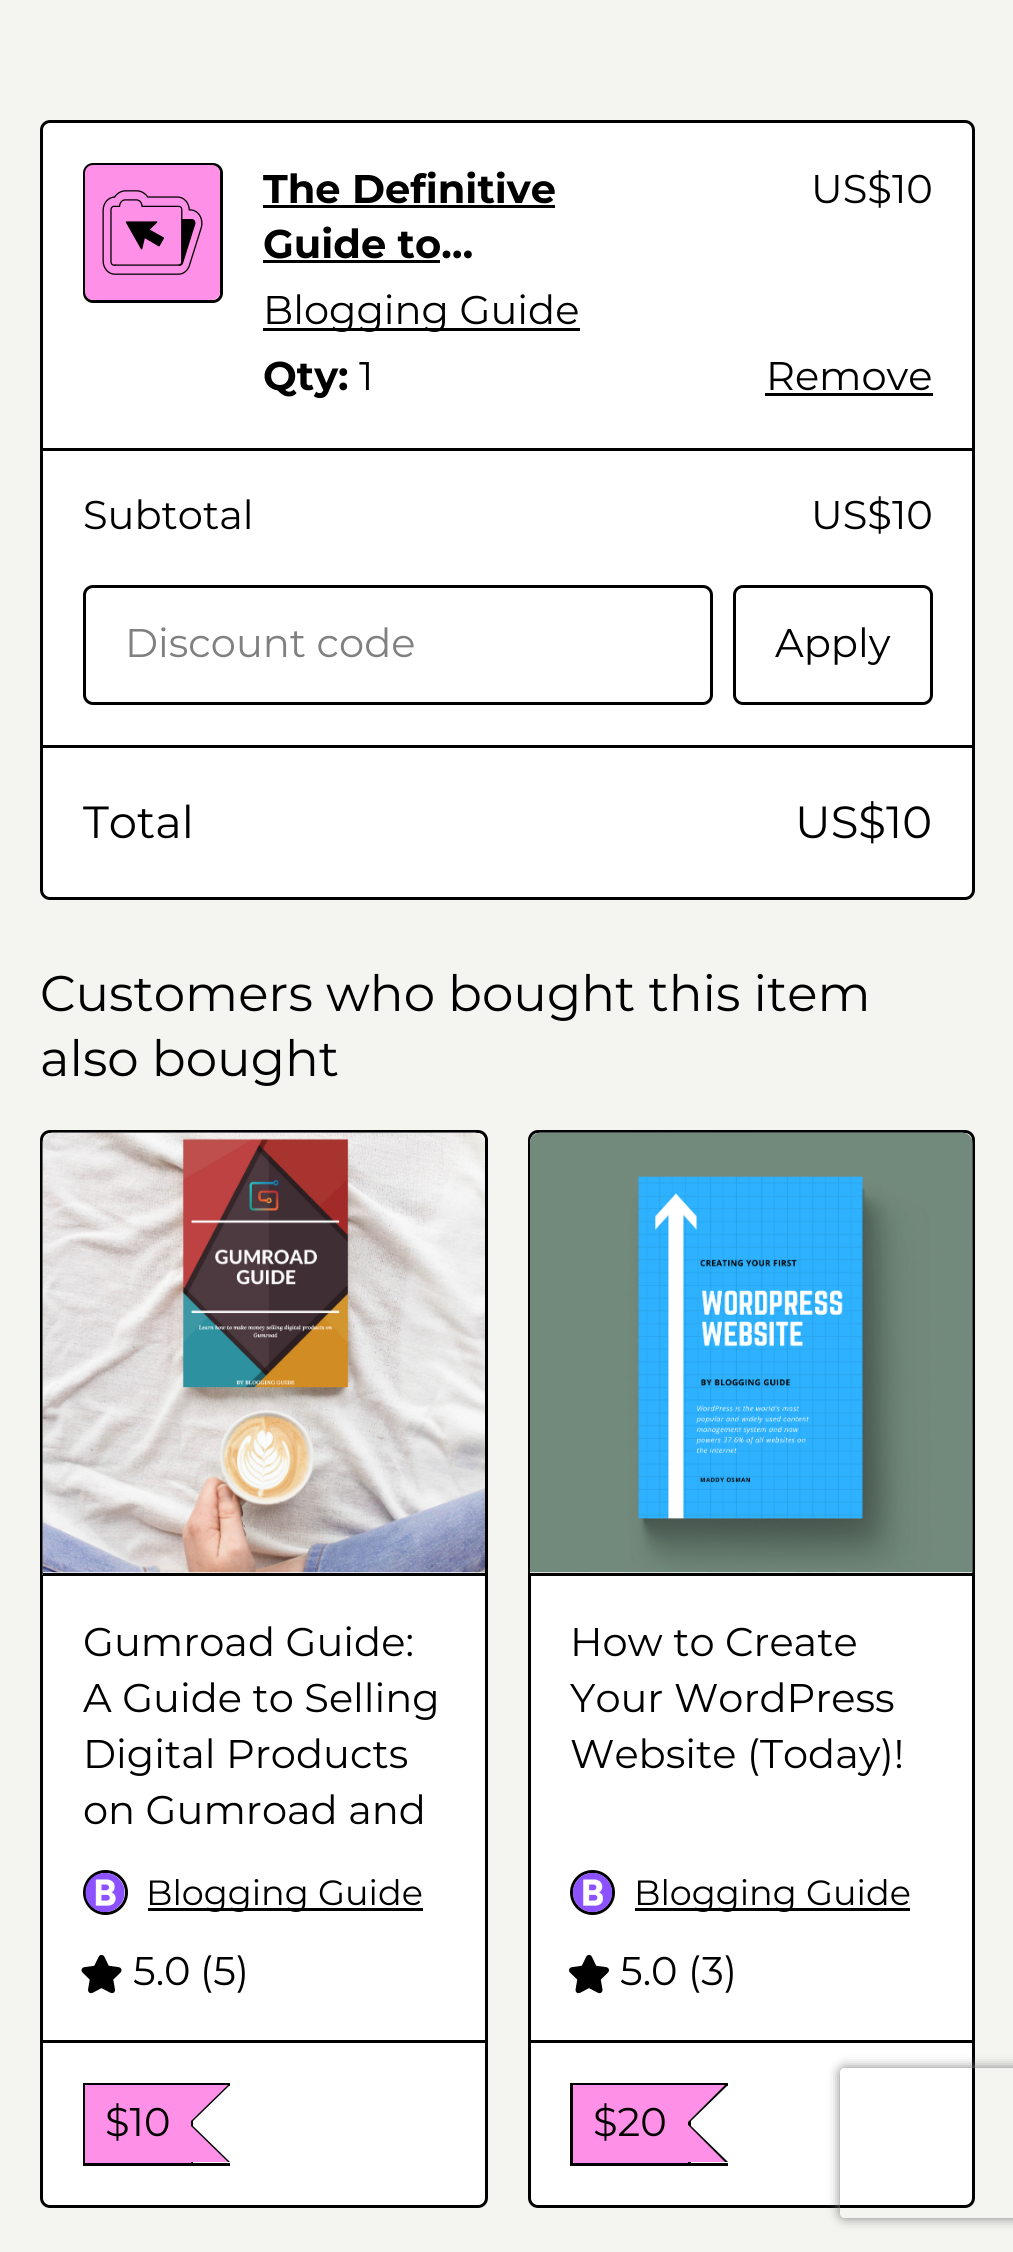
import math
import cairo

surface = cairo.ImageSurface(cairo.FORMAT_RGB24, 1013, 2252)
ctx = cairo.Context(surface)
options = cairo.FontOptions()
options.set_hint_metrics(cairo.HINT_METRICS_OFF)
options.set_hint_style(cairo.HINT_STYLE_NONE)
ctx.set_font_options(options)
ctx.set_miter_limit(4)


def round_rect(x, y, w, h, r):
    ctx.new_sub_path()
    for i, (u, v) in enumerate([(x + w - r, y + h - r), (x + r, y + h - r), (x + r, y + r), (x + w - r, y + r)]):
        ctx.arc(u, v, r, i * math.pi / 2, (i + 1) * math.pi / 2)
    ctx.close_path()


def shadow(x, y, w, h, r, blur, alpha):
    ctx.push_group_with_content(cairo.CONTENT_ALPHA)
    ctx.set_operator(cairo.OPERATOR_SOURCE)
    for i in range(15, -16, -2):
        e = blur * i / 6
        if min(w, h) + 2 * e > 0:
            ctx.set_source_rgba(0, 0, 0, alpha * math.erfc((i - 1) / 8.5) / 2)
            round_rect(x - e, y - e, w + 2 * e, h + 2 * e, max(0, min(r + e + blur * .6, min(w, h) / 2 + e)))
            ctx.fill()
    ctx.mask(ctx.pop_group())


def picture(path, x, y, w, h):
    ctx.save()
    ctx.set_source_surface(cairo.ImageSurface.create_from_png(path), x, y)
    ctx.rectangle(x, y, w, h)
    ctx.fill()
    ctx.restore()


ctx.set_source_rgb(0.957, 0.957, 0.941)
ctx.paint()
ctx.set_source_rgb(1, 1, 1)
round_rect(41.5, 121.5, 932, 777, 8.5)
ctx.fill_preserve()
ctx.set_source_rgb(0, 0, 0)
ctx.set_line_width(3)
ctx.stroke()
round_rect(84.5, 164.5, 137, 137, 8.5)
ctx.stroke()
picture("img1.png", 85, 165, 135, 135)
ctx.save()
ctx.rectangle(263, 163, 382, 112)
ctx.clip()
ctx.select_font_face("Montserrat", cairo.FONT_SLANT_NORMAL, cairo.FONT_WEIGHT_BOLD)
ctx.set_font_size(40)
ctx.move_to(263, 203)
ctx.show_text("The Definitive")
ctx.restore()
ctx.rectangle(263, 205, 292, 3)
ctx.fill()
ctx.select_font_face("Montserrat", cairo.FONT_SLANT_NORMAL, cairo.FONT_WEIGHT_BOLD)
ctx.set_font_size(40)
ctx.move_to(263, 258)
ctx.show_text("Guide to…")
ctx.rectangle(263, 260, 177, 3)
ctx.fill()
ctx.rectangle(263, 328, 317, 3)
ctx.fill()
ctx.select_font_face("Montserrat")
ctx.move_to(263, 324)
ctx.show_text("Blogging Guide")
ctx.select_font_face("Montserrat", cairo.FONT_SLANT_NORMAL, cairo.FONT_WEIGHT_BOLD)
ctx.move_to(263, 390)
ctx.show_text("Qty:")
ctx.select_font_face("Montserrat")
ctx.move_to(359, 390)
ctx.show_text("1")
ctx.move_to(811, 203)
ctx.show_text("US$10")
ctx.move_to(766, 390)
ctx.show_text("Remove")
ctx.rectangle(765, 393, 168, 3)
ctx.fill()
ctx.rectangle(43, 448, 930, 3)
ctx.fill()
ctx.move_to(83, 529)
ctx.show_text("Subtotal")
ctx.move_to(811, 529)
ctx.show_text("US$10")
round_rect(84.5, 586.5, 627, 117, 8.5)
ctx.stroke()
ctx.set_source_rgb(0.502, 0.502, 0.502)
ctx.move_to(125, 657)
ctx.show_text("Discount code")
round_rect(734.5, 586.5, 197, 117, 8.5)
ctx.set_source_rgb(0, 0, 0)
ctx.stroke()
ctx.move_to(775, 657)
ctx.show_text("Apply")
ctx.rectangle(43, 745, 930, 3)
ctx.fill()
ctx.set_font_size(45)
ctx.move_to(83, 838)
ctx.show_text("Total")
ctx.move_to(795, 838)
ctx.show_text("US$10")
ctx.set_font_size(50)
ctx.move_to(40, 1011)
ctx.show_text("Customers who bought this item")
ctx.move_to(40, 1076)
ctx.show_text("also bought")
ctx.set_source_rgb(1, 1, 1)
round_rect(41.5, 1131.5, 445, 1075, 8.5)
ctx.fill_preserve()
ctx.set_source_rgb(0, 0, 0)
ctx.stroke()
picture("img2.png", 42, 1132, 443, 443)
ctx.rectangle(43, 1573, 442, 3)
ctx.fill()
picture("img3.png", 42, 1132, 443, 441)
ctx.rectangle(43, 2040, 442, 3)
ctx.fill()
ctx.set_font_size(40)
ctx.move_to(83, 1656)
ctx.show_text("Gumroad Guide:")
ctx.move_to(83, 1712)
ctx.show_text("A Guide to Selling")
ctx.move_to(83, 1768)
ctx.show_text("Digital Products")
ctx.move_to(83, 1824)
ctx.show_text("on Gumroad and")
ctx.new_path()
ctx.arc(105.5, 1892.5, 21, 0, 2 * math.pi)
ctx.stroke()
picture("img4.png", 85, 1872, 40, 41)
ctx.rectangle(148, 1908, 275, 3)
ctx.fill()
ctx.set_font_size(35)
ctx.move_to(146, 1905)
ctx.show_text("Blogging Guide")
picture("img5.png", 81, 1954, 41, 40)
ctx.set_font_size(40)
ctx.move_to(133, 1985)
ctx.show_text("5.0")
ctx.move_to(200, 1985)
ctx.show_text("(5)")
ctx.rectangle(83, 2083, 147, 3)
ctx.fill()
ctx.rectangle(83, 2163, 147, 3)
ctx.fill()
ctx.rectangle(83, 2083, 3, 82)
ctx.fill()
ctx.new_path()
ctx.move_to(190, 2085)
ctx.line_to(230, 2085)
ctx.line_to(192, 2122)
ctx.close_path()
ctx.fill()
ctx.new_path()
ctx.move_to(230, 2162)
ctx.line_to(190, 2162)
ctx.line_to(192, 2125)
ctx.close_path()
ctx.fill()
ctx.rectangle(191, 2119, 2, 44)
ctx.fill()
ctx.set_source_rgb(1, 0.565, 0.91)
ctx.new_path()
ctx.move_to(188, 2085)
ctx.line_to(228, 2085)
ctx.line_to(190, 2122)
ctx.close_path()
ctx.fill()
ctx.new_path()
ctx.move_to(228, 2162)
ctx.line_to(188, 2162)
ctx.line_to(190, 2125)
ctx.close_path()
ctx.fill()
ctx.rectangle(188, 2085, 3, 78)
ctx.fill()
ctx.rectangle(85, 2085, 103, 78)
ctx.fill()
ctx.set_source_rgb(0, 0, 0)
ctx.move_to(105, 2136)
ctx.show_text("$10")
ctx.set_source_rgb(1, 1, 1)
round_rect(529.5, 1131.5, 444, 1075, 8.5)
ctx.fill_preserve()
ctx.set_source_rgb(0, 0, 0)
ctx.stroke()
picture("img6.png", 530, 1132, 443, 441)
ctx.rectangle(530, 1573, 443, 3)
ctx.fill()
picture("img7.png", 530, 1132, 443, 441)
ctx.rectangle(530, 2040, 443, 3)
ctx.fill()
ctx.move_to(570, 1656)
ctx.show_text("How to Create")
ctx.move_to(570, 1712)
ctx.show_text("Your WordPress")
ctx.move_to(570, 1768)
ctx.show_text("Website (Today)!")
ctx.new_path()
ctx.arc(592.5, 1892.5, 21, 0, 2 * math.pi)
ctx.stroke()
picture("img8.png", 572, 1872, 41, 41)
ctx.rectangle(635, 1908, 275, 3)
ctx.fill()
ctx.set_font_size(35)
ctx.move_to(634, 1905)
ctx.show_text("Blogging Guide")
picture("img9.png", 569, 1954, 40, 40)
ctx.set_font_size(40)
ctx.move_to(620, 1985)
ctx.show_text("5.0")
ctx.move_to(688, 1985)
ctx.show_text("(3)")
ctx.rectangle(570, 2083, 158, 3)
ctx.fill()
ctx.rectangle(570, 2163, 158, 3)
ctx.fill()
ctx.rectangle(570, 2083, 3, 82)
ctx.fill()
ctx.set_source_rgb(1, 0.565, 0.91)
ctx.rectangle(573, 2085, 115, 78)
ctx.fill()
ctx.set_source_rgb(0, 0, 0)
ctx.new_path()
ctx.move_to(688, 2085)
ctx.line_to(728, 2085)
ctx.line_to(690, 2122)
ctx.close_path()
ctx.fill()
ctx.new_path()
ctx.move_to(728, 2162)
ctx.line_to(688, 2162)
ctx.line_to(690, 2125)
ctx.close_path()
ctx.fill()
ctx.rectangle(688, 2119, 3, 44)
ctx.fill()
ctx.set_source_rgb(1, 0.565, 0.91)
ctx.new_path()
ctx.move_to(685, 2085)
ctx.line_to(725, 2085)
ctx.line_to(688, 2122)
ctx.close_path()
ctx.fill()
ctx.new_path()
ctx.move_to(725, 2162)
ctx.line_to(685, 2162)
ctx.line_to(688, 2125)
ctx.close_path()
ctx.fill()
ctx.set_source_rgb(0, 0, 0)
ctx.move_to(593, 2136)
ctx.show_text("$20")
ctx.save()
ctx.set_fill_rule(cairo.FILL_RULE_EVEN_ODD)
ctx.new_path()
ctx.move_to(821, 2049)
ctx.line_to(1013, 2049)
ctx.line_to(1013, 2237)
ctx.line_to(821, 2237)
ctx.close_path()
ctx.move_to(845, 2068)
ctx.line_to(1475, 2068)
ctx.curve_to(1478, 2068, 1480, 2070, 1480, 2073)
ctx.line_to(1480, 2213)
ctx.curve_to(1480, 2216, 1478, 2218, 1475, 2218)
ctx.line_to(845, 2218)
ctx.curve_to(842, 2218, 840, 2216, 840, 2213)
ctx.line_to(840, 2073)
ctx.curve_to(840, 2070, 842, 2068, 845, 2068)
ctx.close_path()
ctx.clip()
ctx.set_source_rgb(0.502, 0.502, 0.502)
shadow(840, 2068, 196, 150, 5, 6, 1)
ctx.restore()
surface.write_to_png("page.png")
